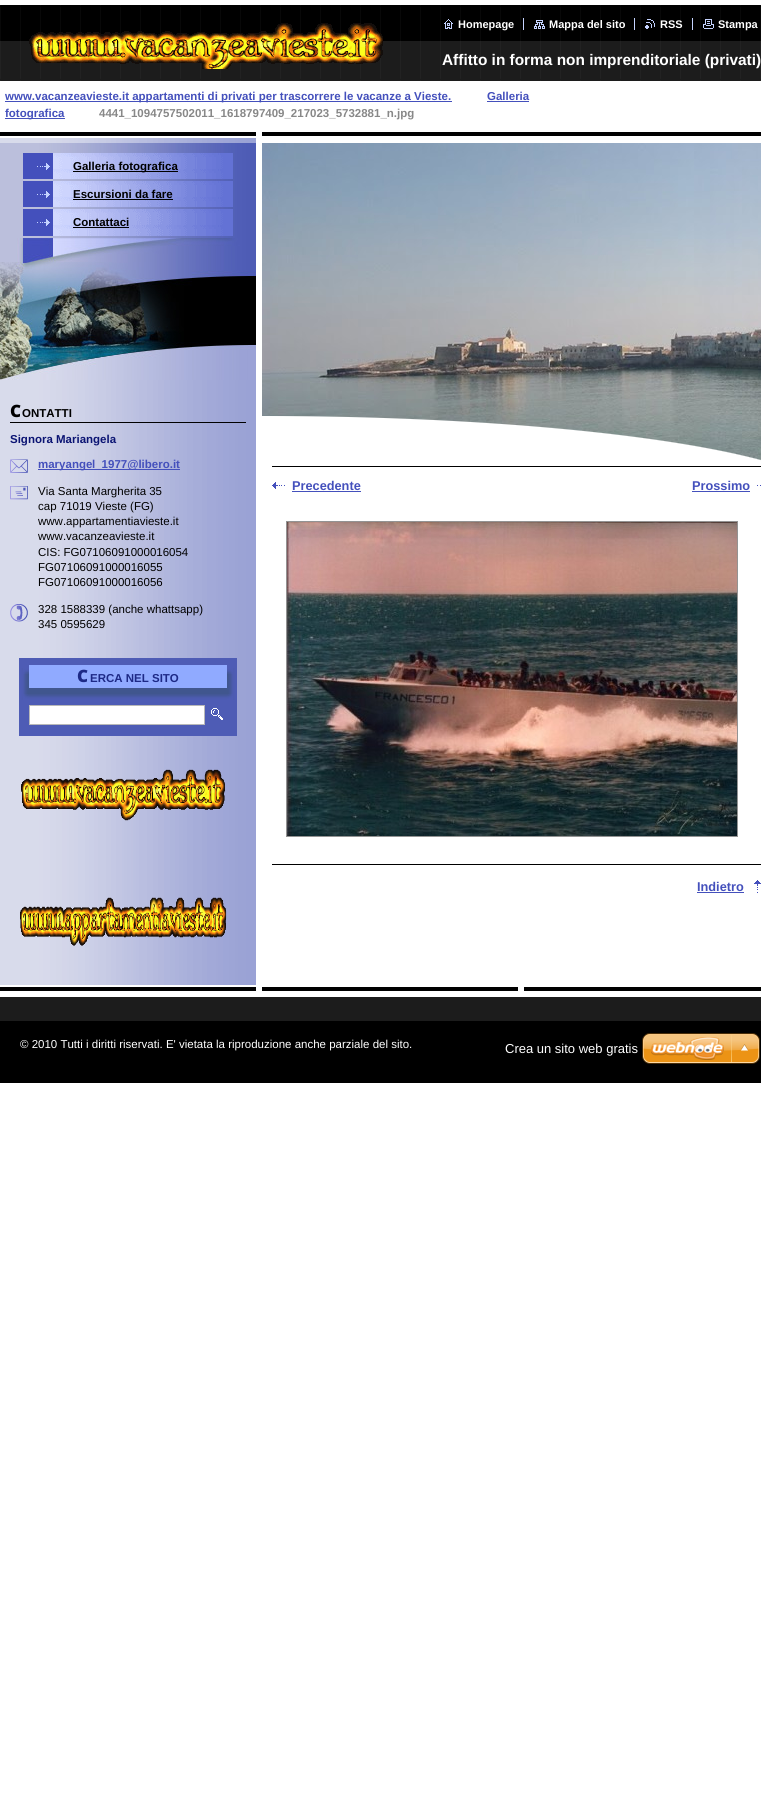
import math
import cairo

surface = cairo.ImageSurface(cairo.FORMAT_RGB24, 761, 1796)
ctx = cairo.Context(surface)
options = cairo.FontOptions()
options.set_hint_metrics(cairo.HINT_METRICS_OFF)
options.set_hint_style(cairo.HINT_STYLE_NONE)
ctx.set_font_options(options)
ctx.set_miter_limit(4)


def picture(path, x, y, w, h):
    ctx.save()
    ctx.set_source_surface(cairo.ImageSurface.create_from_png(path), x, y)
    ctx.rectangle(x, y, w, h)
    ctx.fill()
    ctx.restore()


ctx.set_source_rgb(1, 1, 1)
ctx.paint()
picture("img1.png", 0, 138, 256, 847)
picture("img2.png", 0, 0, 761, 81)
picture("img3.png", 29, 23, 354, 46)
picture("img4.png", 444, 19, 9, 10)
ctx.select_font_face("Liberation Sans", cairo.FONT_SLANT_NORMAL, cairo.FONT_WEIGHT_BOLD)
ctx.set_font_size(11)
ctx.set_source_rgb(1, 1, 1)
ctx.move_to(458, 28)
ctx.show_text("Homepage")
picture("img5.png", 534, 20, 11, 9)
ctx.move_to(549, 28)
ctx.show_text("Mappa del sito")
ctx.set_source_rgb(0.773, 0.827, 1)
ctx.rectangle(523, 18, 1, 12)
ctx.fill()
picture("img6.png", 645, 19, 10, 10)
ctx.set_source_rgb(1, 1, 1)
ctx.move_to(660, 28)
ctx.show_text("RSS")
ctx.set_source_rgb(0.773, 0.827, 1)
ctx.rectangle(634, 18, 1, 12)
ctx.fill()
picture("img7.png", 703, 19, 11, 10)
ctx.set_source_rgb(1, 1, 1)
ctx.move_to(718, 28)
ctx.show_text("Stampa")
ctx.set_source_rgb(0.773, 0.827, 1)
ctx.rectangle(692, 18, 1, 12)
ctx.fill()
ctx.set_font_size(15.4)
ctx.set_source_rgb(1, 1, 1)
ctx.move_to(442, 65)
ctx.show_text("Affitto in forma non imprenditoriale (privati)")
ctx.set_source_rgb(0.267, 0.314, 0.737)
ctx.rectangle(5, 101, 447, 1)
ctx.fill()
ctx.set_font_size(11.5)
ctx.move_to(5, 100)
ctx.show_text("www.vacanzeavieste.it appartamenti di privati per trascorrere le vacanze a Vieste.")
ctx.move_to(487, 100)
ctx.show_text("Galleria")
ctx.rectangle(487, 101, 42, 1)
ctx.fill()
ctx.rectangle(5, 118, 60, 1)
ctx.fill()
ctx.move_to(5, 117)
ctx.show_text("fotografica")
ctx.set_source_rgb(0.533, 0.533, 0.533)
ctx.move_to(99, 117)
ctx.show_text("4441_1094757502011_1618797409_217023_5732881_n.jpg")
picture("img8.png", 0, 132, 256, 6)
picture("img9.png", 0, 143, 256, 95)
picture("img10.png", 23, 153, 210, 26)
picture("img11.png", 37, 163, 13, 7)
ctx.set_source_rgb(0, 0, 0)
ctx.rectangle(73, 171, 105, 1)
ctx.fill()
ctx.move_to(73, 170)
ctx.show_text("Galleria fotografica")
picture("img10.png", 23, 181, 210, 26)
picture("img11.png", 37, 191, 13, 7)
ctx.move_to(73, 198)
ctx.show_text("Escursioni da fare")
ctx.rectangle(73, 199, 100, 1)
ctx.fill()
picture("img12.png", 23, 209, 210, 27)
picture("img11.png", 37, 219, 13, 7)
ctx.move_to(73, 226)
ctx.show_text("Contattaci")
ctx.rectangle(73, 227, 56, 1)
ctx.fill()
picture("img13.png", 0, 238, 256, 142)
ctx.rectangle(10, 422, 236, 1)
ctx.fill()
ctx.select_font_face("Noto Sans Black")
ctx.set_font_size(17)
ctx.move_to(10, 417)
ctx.show_text("C")
ctx.select_font_face("Liberation Sans", cairo.FONT_SLANT_NORMAL, cairo.FONT_WEIGHT_BOLD)
ctx.set_font_size(11.5)
ctx.move_to(22, 417)
ctx.show_text("ONTATTI")
ctx.set_source_rgb(0.043, 0.082, 0.451)
ctx.move_to(10, 443)
ctx.show_text("Signora Mariangela")
picture("img14.png", 10, 459, 18, 14)
ctx.set_source_rgb(0.267, 0.314, 0.737)
ctx.rectangle(38, 469, 54, 1)
ctx.fill()
ctx.move_to(38, 468)
ctx.show_text("maryange")
ctx.rectangle(92, 469, 88, 1)
ctx.fill()
ctx.move_to(92, 468)
ctx.show_text("l_1977@libero.it")
picture("img15.png", 10, 486, 18, 14)
ctx.select_font_face("Liberation Sans")
ctx.set_source_rgb(0, 0, 0)
ctx.move_to(38, 495)
ctx.show_text("Via Santa Margherita 35")
ctx.move_to(38, 510)
ctx.show_text("cap 71019 Vieste (FG)")
ctx.move_to(38, 525)
ctx.show_text("www.appartamentiavieste.it")
ctx.move_to(38, 540)
ctx.show_text("www.vacanzeavieste.it")
ctx.move_to(38, 556)
ctx.show_text("CIS: FG07106091000016054")
ctx.move_to(38, 571)
ctx.show_text("FG07106091000016055")
ctx.move_to(38, 586)
ctx.show_text("FG07106091000016056")
picture("img16.png", 10, 604, 18, 18)
ctx.move_to(38, 613)
ctx.show_text("328 1588339 (anche whattsapp)")
ctx.move_to(38, 628)
ctx.show_text("345 0595629")
ctx.set_source_rgb(0.306, 0.361, 0.71)
ctx.rectangle(19, 658, 218, 78)
ctx.fill()
ctx.set_source_rgb(0.251, 0.337, 0.557)
ctx.rectangle(29, 688, 198, 6)
ctx.fill()
picture("img17.png", 19, 668, 218, 32)
picture("img18.png", 23, 668, 210, 6)
ctx.set_source_rgb(0.565, 0.667, 1)
ctx.rectangle(29, 665, 198, 23)
ctx.fill()
ctx.select_font_face("Noto Sans Black")
ctx.set_font_size(17)
ctx.set_source_rgb(0.114, 0.161, 0.525)
ctx.move_to(77, 682)
ctx.show_text("C")
ctx.select_font_face("Liberation Sans", cairo.FONT_SLANT_NORMAL, cairo.FONT_WEIGHT_BOLD)
ctx.set_font_size(11.5)
ctx.move_to(90, 682)
ctx.show_text("ERCA NEL SITO")
picture("img19.png", 23, 694, 210, 6)
ctx.set_source_rgb(1, 1, 1)
ctx.rectangle(29.5, 705.5, 175, 19)
ctx.fill_preserve()
ctx.set_source_rgb(0.722, 0.722, 0.722)
ctx.set_line_width(1)
ctx.stroke()
picture("img20.png", 211, 708, 12, 12)
picture("img21.png", 21, 769, 204, 52)
picture("img22.png", 20, 897, 207, 49)
ctx.set_source_rgb(0, 0, 0)
ctx.rectangle(262, 132, 499, 4)
ctx.fill()
picture("img23.png", 262, 143, 499, 318)
picture("img24.png", 262, 416, 499, 46)
ctx.rectangle(272, 466, 489, 1)
ctx.fill()
picture("img25.png", 272, 482, 13, 7)
ctx.set_font_size(12.75)
ctx.set_source_rgb(0.267, 0.314, 0.737)
ctx.move_to(292, 490)
ctx.show_text("Precedente")
ctx.rectangle(292, 491, 69, 1)
ctx.fill()
picture("img26.png", 757, 485, 4, 1)
ctx.move_to(692, 490)
ctx.show_text("Prossimo")
ctx.rectangle(692, 491, 58, 1)
ctx.fill()
ctx.rectangle(286.5, 521.5, 451, 315)
ctx.set_source_rgb(0.576, 0.576, 0.576)
ctx.stroke()
picture("img27.png", 287, 522, 450, 314)
ctx.set_source_rgb(0, 0, 0)
ctx.rectangle(272, 864, 489, 1)
ctx.fill()
ctx.set_source_rgb(0.267, 0.314, 0.737)
ctx.move_to(697, 891)
ctx.show_text("Indietro")
ctx.rectangle(697, 892, 47, 1)
ctx.fill()
picture("img28.png", 754, 880, 7, 13)
ctx.set_source_rgb(0, 0, 0)
ctx.rectangle(0, 1021, 761, 62)
ctx.fill()
picture("img29.png", 0, 985, 761, 12)
ctx.set_source_rgb(0.11, 0.11, 0.11)
ctx.rectangle(0, 997, 761, 24)
ctx.fill()
ctx.select_font_face("Liberation Sans")
ctx.set_font_size(11.5)
ctx.set_source_rgb(1, 1, 1)
ctx.move_to(20, 1048)
ctx.show_text("© 2010 Tutti i diritti riservati. E' vietata la riproduzione anche parziale del sito.")
ctx.set_font_size(13)
ctx.move_to(505, 1053)
ctx.show_text("Crea un sito web gratis")
picture("img30.png", 642, 1033, 118, 31)
surface.write_to_png("page.png")
